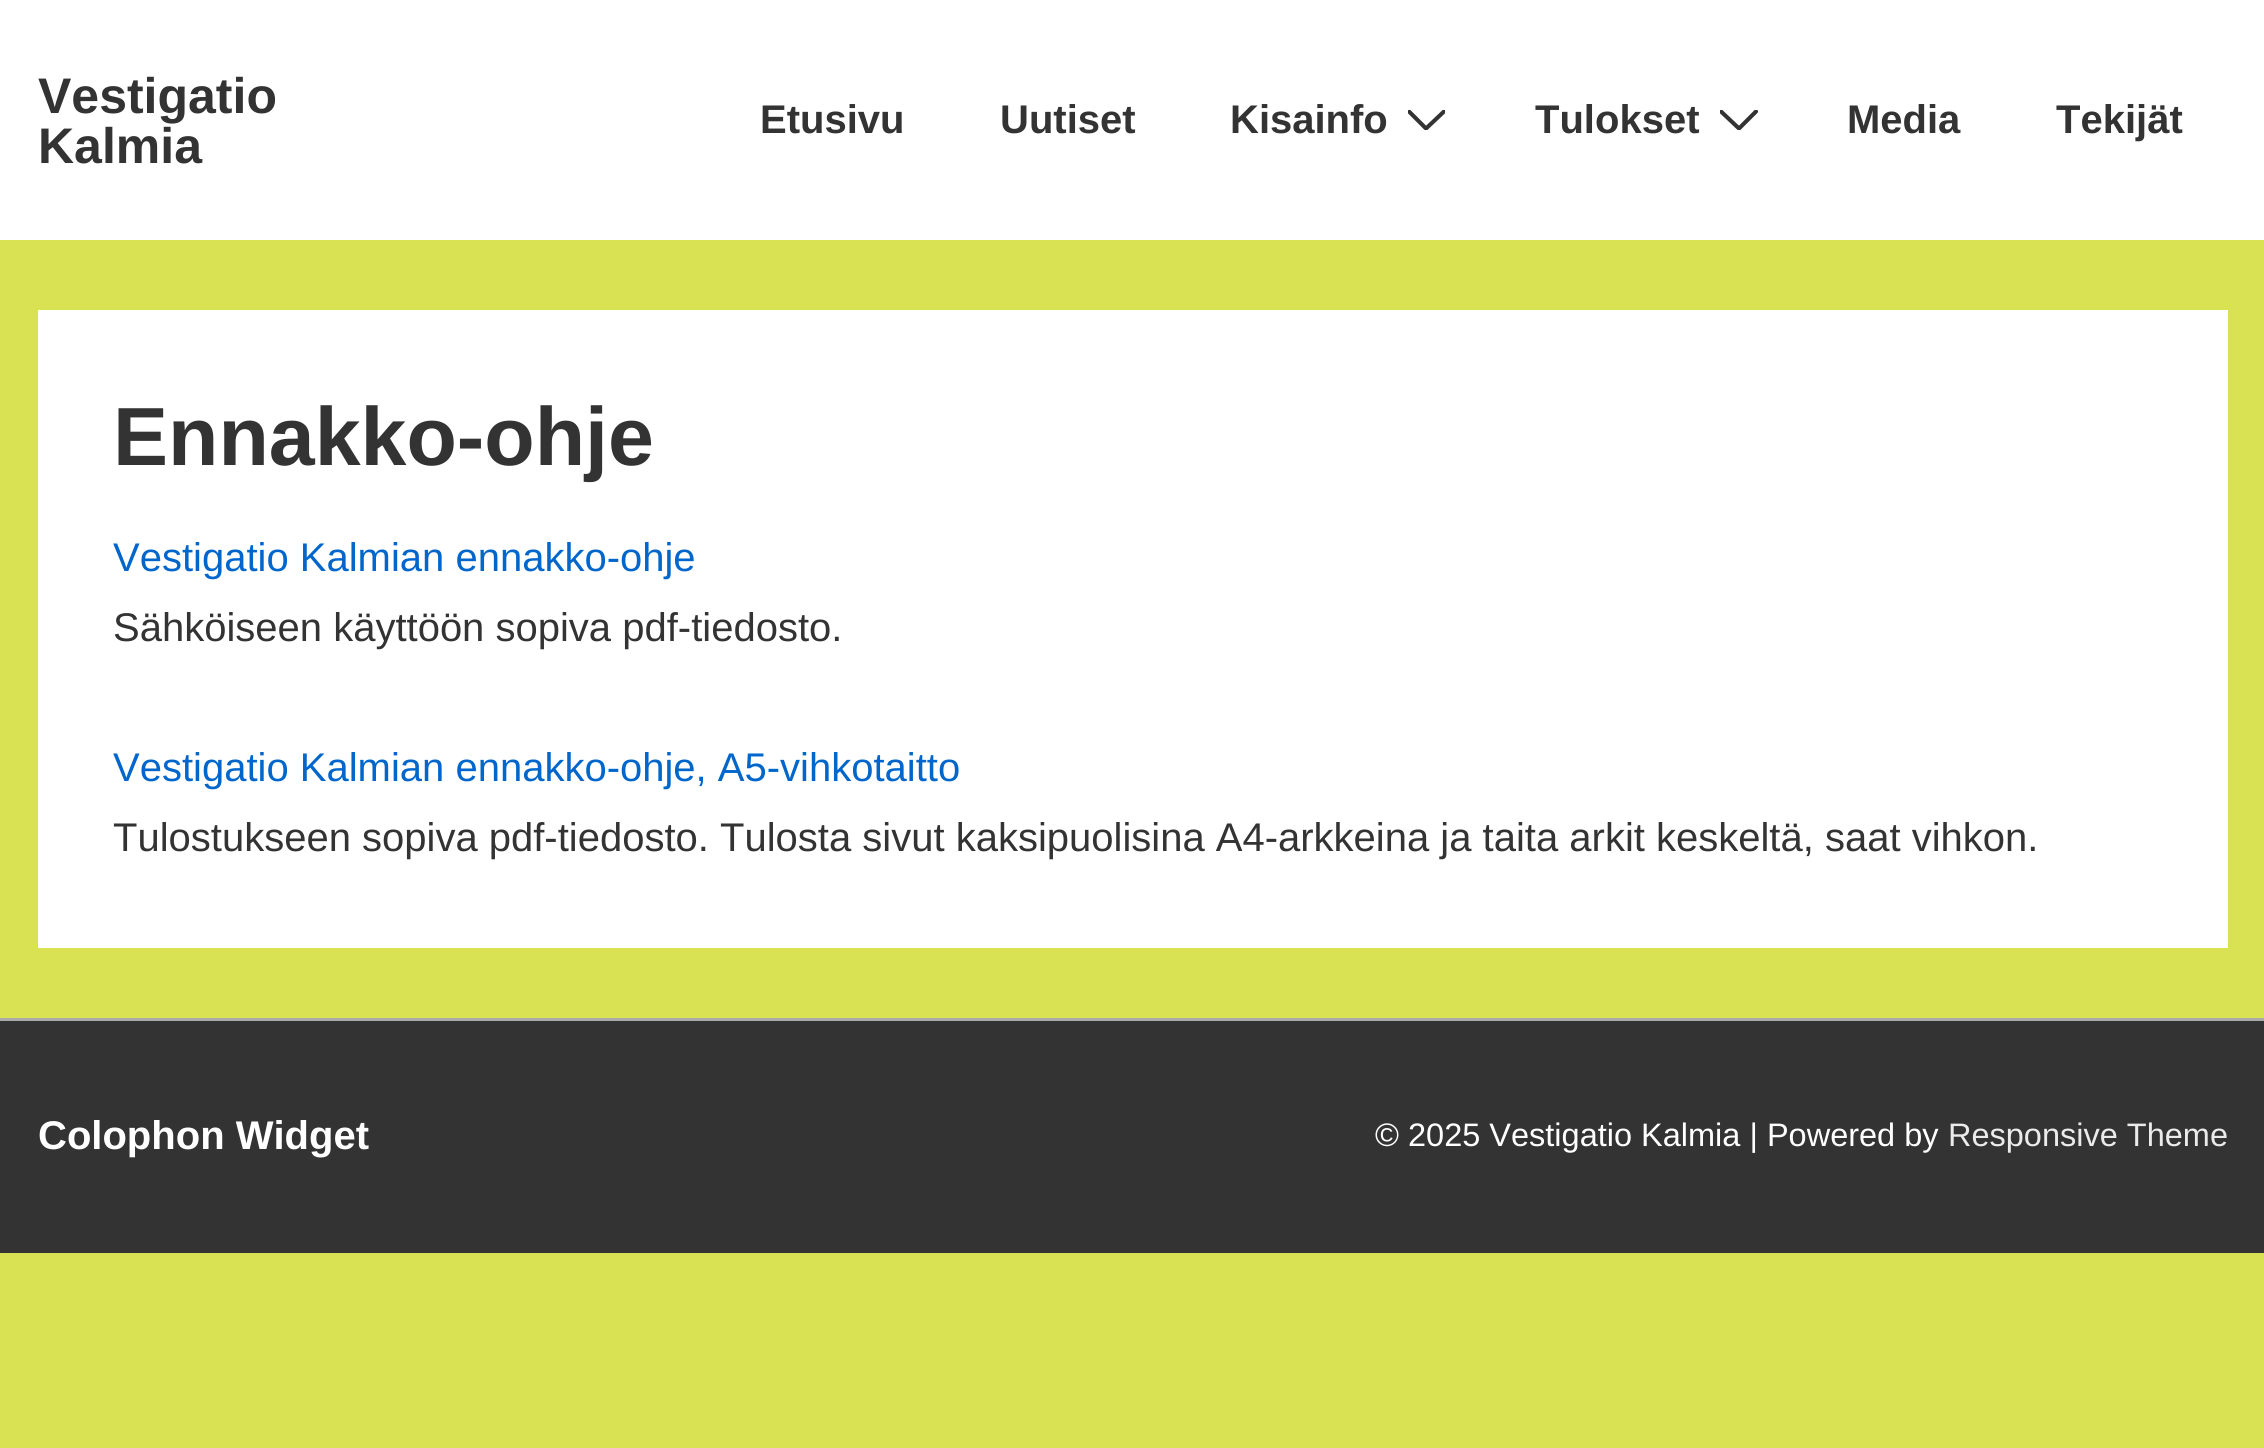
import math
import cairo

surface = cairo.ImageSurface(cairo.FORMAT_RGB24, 2264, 1448)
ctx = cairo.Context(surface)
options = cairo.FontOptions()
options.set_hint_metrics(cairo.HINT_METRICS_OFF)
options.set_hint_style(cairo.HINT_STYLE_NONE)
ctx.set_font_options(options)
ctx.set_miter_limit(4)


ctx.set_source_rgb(0.851, 0.886, 0.322)
ctx.paint()
ctx.set_source_rgb(1, 1, 1)
ctx.rectangle(0, 0, 2264, 240)
ctx.fill()
ctx.select_font_face("Liberation Sans", cairo.FONT_SLANT_NORMAL, cairo.FONT_WEIGHT_BOLD)
ctx.set_font_size(50)
ctx.set_source_rgb(0.2, 0.2, 0.2)
ctx.move_to(38, 113)
ctx.show_text("Vestigatio")
ctx.move_to(38, 163)
ctx.show_text("Kalmia")
ctx.set_font_size(40)
ctx.move_to(760, 133)
ctx.show_text("Etusivu")
ctx.move_to(1000, 133)
ctx.show_text("Uutiset")
ctx.move_to(1230, 133)
ctx.show_text("Kisainfo")
ctx.save()
ctx.rectangle(1408, 110, 37, 20)
ctx.clip()
ctx.new_path()
ctx.move_to(1409, 111.5)
ctx.line_to(1426, 128.5)
ctx.line_to(1444, 111.5)
ctx.set_line_width(4.1)
ctx.set_line_cap(cairo.LINE_CAP_ROUND)
ctx.stroke()
ctx.restore()
ctx.move_to(1535, 133)
ctx.show_text("Tulokset")
ctx.save()
ctx.rectangle(1720, 110, 38, 20)
ctx.clip()
ctx.new_path()
ctx.move_to(1721, 111.5)
ctx.line_to(1739, 128.5)
ctx.line_to(1756, 111.5)
ctx.set_line_width(4.1)
ctx.set_line_cap(cairo.LINE_CAP_ROUND)
ctx.stroke()
ctx.restore()
ctx.move_to(1847, 133)
ctx.show_text("Media")
ctx.move_to(2056, 133)
ctx.show_text("Tekijät")
ctx.set_source_rgb(1, 1, 1)
ctx.rectangle(38, 310, 2190, 638)
ctx.fill()
ctx.set_font_size(82.5)
ctx.set_source_rgb(0.2, 0.2, 0.2)
ctx.move_to(113, 465)
ctx.show_text("Ennakko-ohje")
ctx.select_font_face("Liberation Sans")
ctx.set_font_size(40)
ctx.set_source_rgb(0, 0.4, 0.8)
ctx.move_to(113, 571)
ctx.show_text("Vestigatio Kalmian ennakko-ohje")
ctx.set_source_rgb(0.2, 0.2, 0.2)
ctx.move_to(113, 641)
ctx.show_text("Sähköiseen käyttöön sopiva pdf-tiedosto.")
ctx.set_source_rgb(0, 0.4, 0.8)
ctx.move_to(113, 781)
ctx.show_text("Vestigatio Kalmian ennakko-ohje, A5-vihkotaitto")
ctx.set_source_rgb(0.2, 0.2, 0.2)
ctx.move_to(113, 851)
ctx.show_text("Tulostukseen sopiva pdf-tiedosto. Tulosta sivut kaksipuolisina A4-arkkeina ja taita arkit keskeltä, saat vihkon.")
ctx.rectangle(0, 1021, 2264, 232)
ctx.fill()
ctx.set_source_rgb(0.667, 0.667, 0.667)
ctx.rectangle(0, 1018, 2264, 3)
ctx.fill()
ctx.select_font_face("Liberation Sans", cairo.FONT_SLANT_NORMAL, cairo.FONT_WEIGHT_BOLD)
ctx.set_source_rgb(1, 1, 1)
ctx.move_to(38, 1149)
ctx.show_text("Colophon Widget")
ctx.select_font_face("Liberation Sans")
ctx.set_font_size(32.5)
ctx.move_to(1375, 1146)
ctx.show_text("© 2025 Vestigatio Kalmia | Powered by")
ctx.set_source_rgb(0.918, 0.918, 0.918)
ctx.move_to(1948, 1146)
ctx.show_text("Responsive Theme")
surface.write_to_png("page.png")
